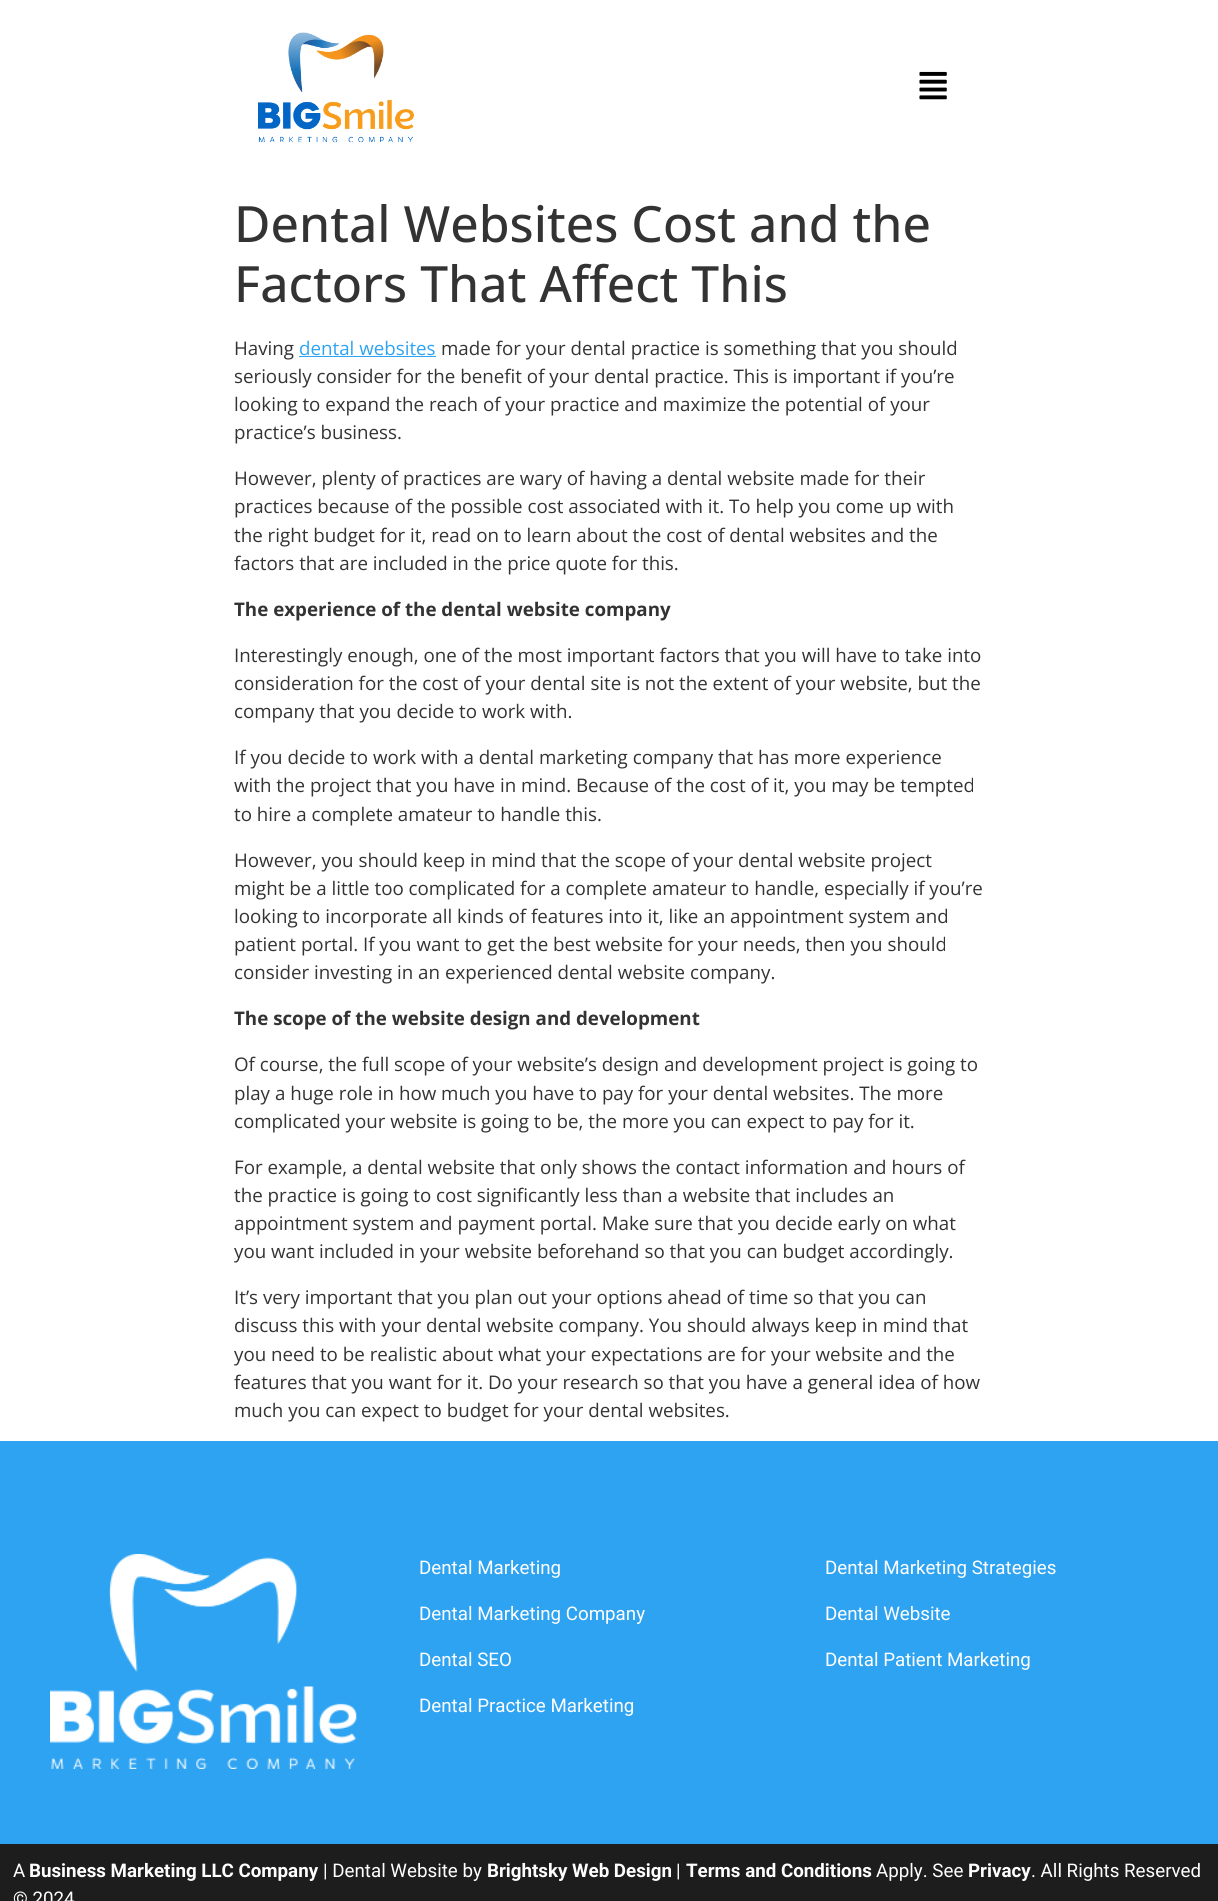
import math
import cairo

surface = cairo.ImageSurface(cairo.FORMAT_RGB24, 1218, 1901)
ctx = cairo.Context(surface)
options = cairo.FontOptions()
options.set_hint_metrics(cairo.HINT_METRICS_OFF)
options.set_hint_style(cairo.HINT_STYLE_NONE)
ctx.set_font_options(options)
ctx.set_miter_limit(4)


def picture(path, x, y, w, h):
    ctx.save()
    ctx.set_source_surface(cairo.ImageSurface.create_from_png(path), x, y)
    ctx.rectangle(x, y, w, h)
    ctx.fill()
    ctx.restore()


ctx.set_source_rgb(1, 1, 1)
ctx.paint()
picture("img1.png", 258, 32, 156, 111)
picture("img2.png", 919, 71, 28, 29)
ctx.select_font_face("Open Sans Medium")
ctx.set_font_size(50)
ctx.set_source_rgb(0.2, 0.2, 0.2)
ctx.move_to(234, 242)
ctx.show_text("Dental Websites Cost and the")
ctx.move_to(234, 302)
ctx.show_text("Factors That Affect This")
ctx.select_font_face("Open Sans")
ctx.set_font_size(18.75)
ctx.move_to(234, 355)
ctx.show_text("Having")
ctx.set_source_rgb(0.18, 0.639, 0.949)
ctx.move_to(299, 355)
ctx.show_text("dental websites")
ctx.rectangle(299, 356, 137, 1)
ctx.fill()
ctx.set_source_rgb(0.2, 0.2, 0.2)
ctx.move_to(441, 355)
ctx.show_text("made for your dental practice is something that you should")
ctx.move_to(234, 383)
ctx.show_text("seriously consider for the benefit of your dental practice. This is important if you’re")
ctx.move_to(234, 411)
ctx.show_text("looking to expand the reach of your practice and maximize the potential of your")
ctx.move_to(234, 439)
ctx.show_text("practice’s business.")
ctx.move_to(234, 485)
ctx.show_text("However, plenty of practices are wary of having a dental website made for their")
ctx.move_to(234, 513)
ctx.show_text("practices because of the possible cost associated with it. To help you come up with")
ctx.move_to(234, 542)
ctx.show_text("the right budget for it, read on to learn about the cost of dental websites and the")
ctx.move_to(234, 570)
ctx.show_text("factors that are included in the price quote for this.")
ctx.select_font_face("Open Sans", cairo.FONT_SLANT_NORMAL, cairo.FONT_WEIGHT_BOLD)
ctx.move_to(234, 616)
ctx.show_text("The experience of the dental website company")
ctx.select_font_face("Open Sans")
ctx.move_to(234, 662)
ctx.show_text("Interestingly enough, one of the most important factors that you will have to take into")
ctx.move_to(234, 690)
ctx.show_text("consideration for the cost of your dental site is not the extent of your website, but the")
ctx.move_to(234, 718)
ctx.show_text("company that you decide to work with.")
ctx.move_to(234, 764)
ctx.show_text("If you decide to work with a dental marketing company that has more experience")
ctx.move_to(234, 792)
ctx.show_text("with the project that you have in mind. Because of the cost of it, you may be tempted")
ctx.move_to(234, 821)
ctx.show_text("to hire a complete amateur to handle this.")
ctx.move_to(234, 867)
ctx.show_text("However, you should keep in mind that the scope of your dental website project")
ctx.move_to(234, 895)
ctx.show_text("might be a little too complicated for a complete amateur to handle, especially if you’re")
ctx.move_to(234, 923)
ctx.show_text("looking to incorporate all kinds of features into it, like an appointment system and")
ctx.move_to(234, 951)
ctx.show_text("patient portal. If you want to get the best website for your needs, then you should")
ctx.move_to(234, 979)
ctx.show_text("consider investing in an experienced dental website company.")
ctx.select_font_face("Open Sans", cairo.FONT_SLANT_NORMAL, cairo.FONT_WEIGHT_BOLD)
ctx.move_to(234, 1025)
ctx.show_text("The scope of the website design and development")
ctx.select_font_face("Open Sans")
ctx.move_to(234, 1071)
ctx.show_text("Of course, the full scope of your website’s design and development project is going to")
ctx.move_to(234, 1100)
ctx.show_text("play a huge role in how much you have to pay for your dental websites. The more")
ctx.move_to(234, 1128)
ctx.show_text("complicated your website is going to be, the more you can expect to pay for it.")
ctx.move_to(234, 1174)
ctx.show_text("For example, a dental website that only shows the contact information and hours of")
ctx.move_to(234, 1202)
ctx.show_text("the practice is going to cost significantly less than a website that includes an")
ctx.move_to(234, 1230)
ctx.show_text("appointment system and payment portal. Make sure that you decide early on what")
ctx.move_to(234, 1258)
ctx.show_text("you want included in your website beforehand so that you can budget accordingly.")
ctx.move_to(234, 1304)
ctx.show_text("It’s very important that you plan out your options ahead of time so that you can")
ctx.move_to(234, 1332)
ctx.show_text("discuss this with your dental website company. You should always keep in mind that")
ctx.move_to(234, 1361)
ctx.show_text("you need to be realistic about what your expectations are for your website and the")
ctx.move_to(234, 1389)
ctx.show_text("features that you want for it. Do your research so that you have a general idea of how")
ctx.move_to(234, 1417)
ctx.show_text("much you can expect to budget for your dental websites.")
ctx.set_source_rgb(0.18, 0.639, 0.949)
ctx.rectangle(0, 1441, 1218, 403)
ctx.fill()
picture("img3.png", 50, 1554, 307, 215)
ctx.select_font_face("Roboto")
ctx.set_source_rgb(1, 1, 1)
ctx.move_to(419, 1574)
ctx.show_text("Dental Marketing")
ctx.move_to(419, 1620)
ctx.show_text("Dental Marketing Company")
ctx.move_to(419, 1666)
ctx.show_text("Dental SEO")
ctx.move_to(419, 1712)
ctx.show_text("Dental Practice Marketing")
ctx.move_to(825, 1574)
ctx.show_text("Dental Marketing Strategies")
ctx.move_to(825, 1620)
ctx.show_text("Dental Website")
ctx.move_to(825, 1666)
ctx.show_text("Dental Patient Marketing")
ctx.set_source_rgb(0.114, 0.114, 0.114)
ctx.rectangle(0, 1844, 1218, 57)
ctx.fill()
ctx.set_source_rgb(1, 1, 1)
ctx.move_to(13, 1877)
ctx.show_text("A")
ctx.select_font_face("Roboto", cairo.FONT_SLANT_NORMAL, cairo.FONT_WEIGHT_BOLD)
ctx.move_to(29, 1877)
ctx.show_text("Business Marketing LLC Company")
ctx.select_font_face("Roboto")
ctx.move_to(323, 1877)
ctx.show_text("| Dental Website by")
ctx.select_font_face("Roboto", cairo.FONT_SLANT_NORMAL, cairo.FONT_WEIGHT_BOLD)
ctx.move_to(487, 1877)
ctx.show_text("Brightsky Web Design")
ctx.select_font_face("Roboto")
ctx.move_to(676, 1877)
ctx.show_text("|")
ctx.select_font_face("Roboto", cairo.FONT_SLANT_NORMAL, cairo.FONT_WEIGHT_BOLD)
ctx.move_to(686, 1877)
ctx.show_text("Terms and Conditions")
ctx.select_font_face("Roboto")
ctx.move_to(876, 1877)
ctx.show_text("Apply. See")
ctx.select_font_face("Roboto", cairo.FONT_SLANT_NORMAL, cairo.FONT_WEIGHT_BOLD)
ctx.move_to(968, 1877)
ctx.show_text("Privacy")
ctx.select_font_face("Roboto")
ctx.move_to(1031, 1877)
ctx.show_text(". All Rights Reserved")
ctx.move_to(13, 1905)
ctx.show_text("© 2024")
surface.write_to_png("page.png")
